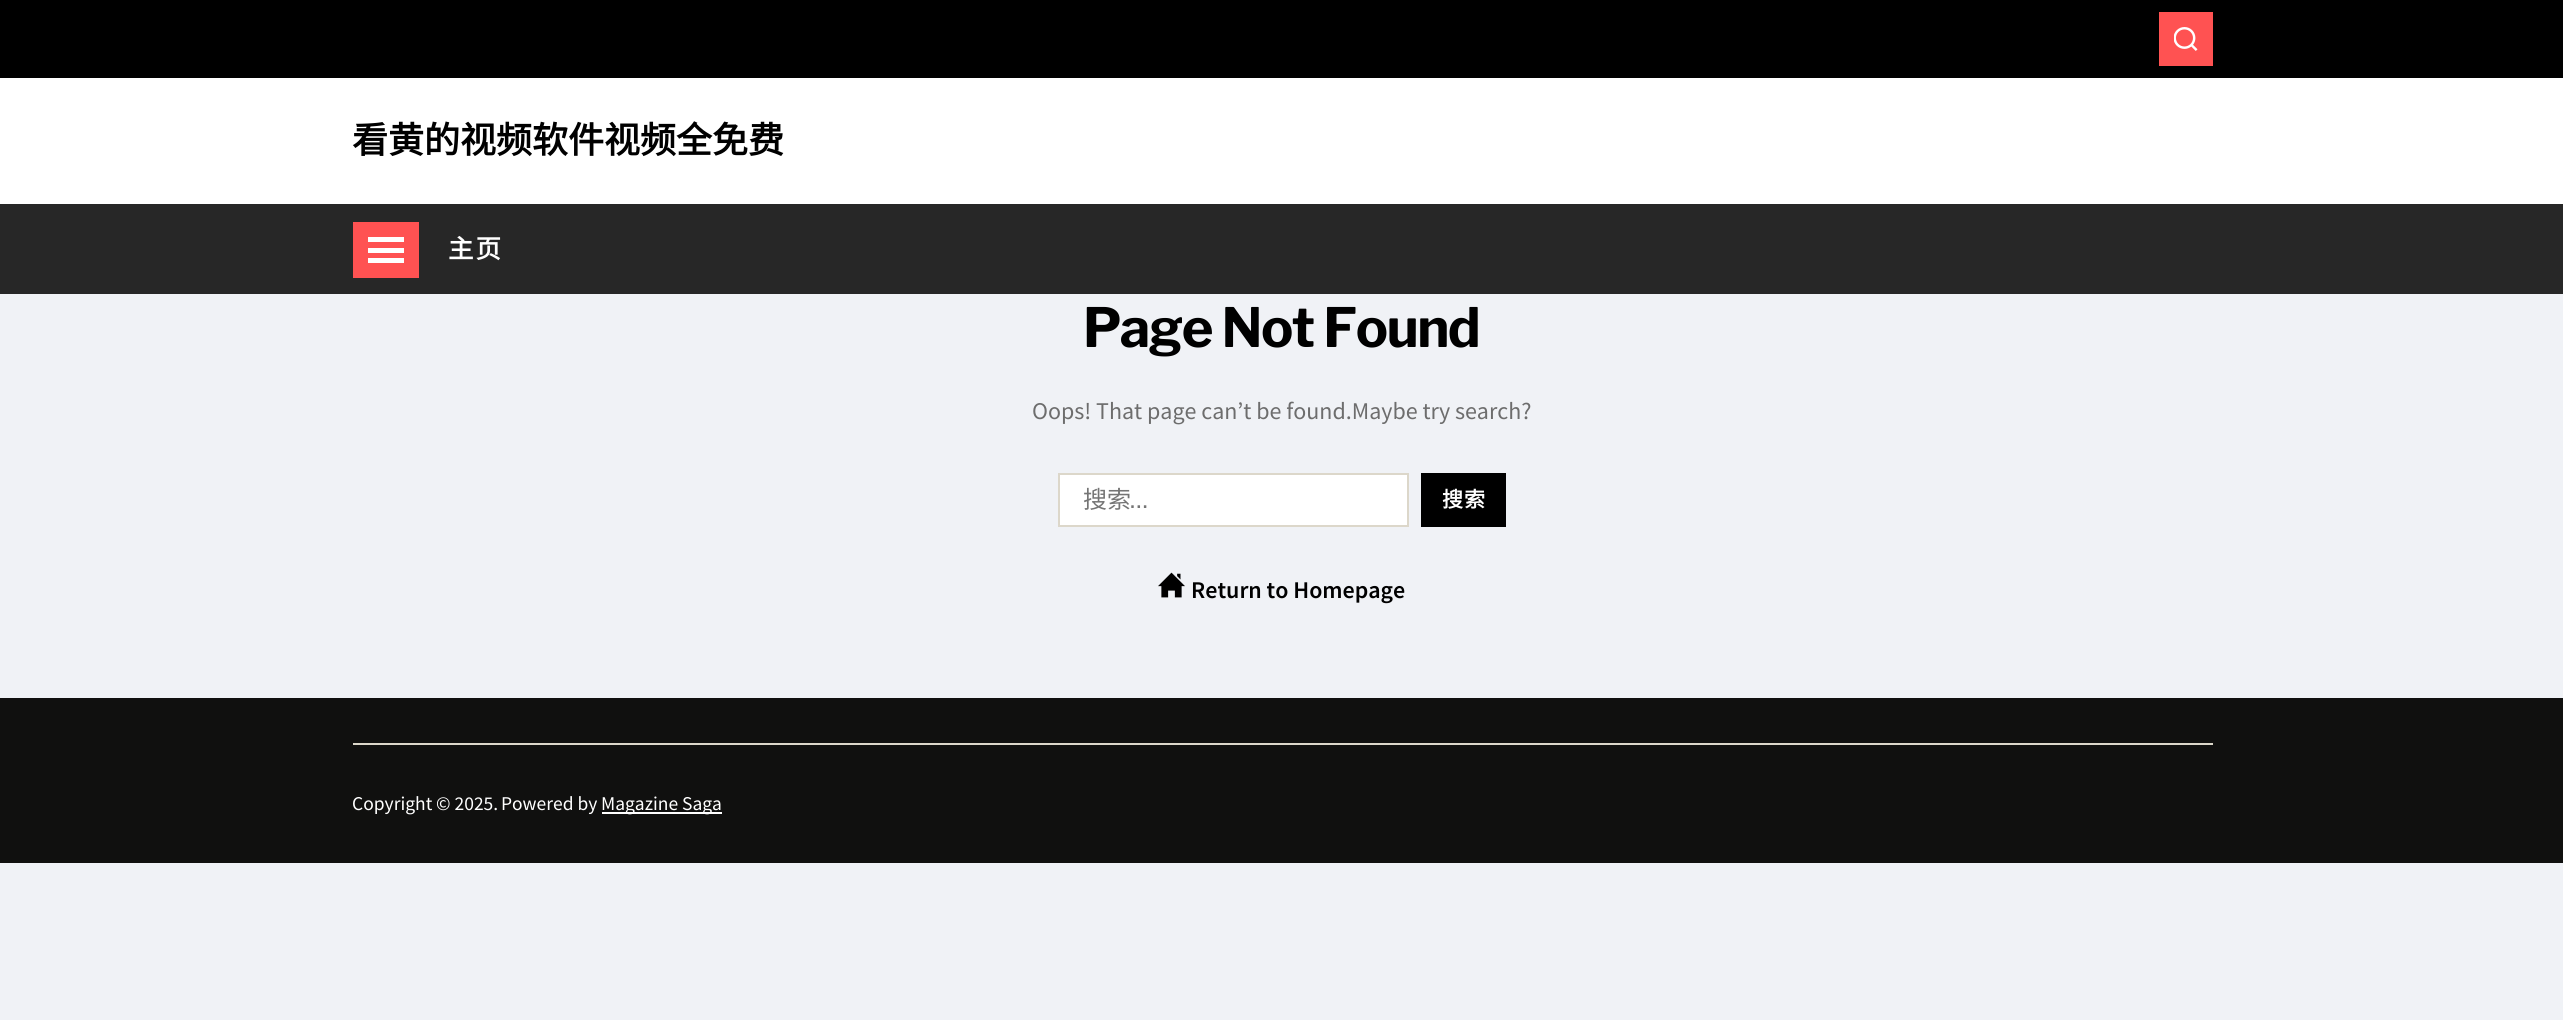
import math
import cairo

surface = cairo.ImageSurface(cairo.FORMAT_RGB24, 2563, 1020)
ctx = cairo.Context(surface)
options = cairo.FontOptions()
options.set_hint_metrics(cairo.HINT_METRICS_OFF)
options.set_hint_style(cairo.HINT_STYLE_NONE)
ctx.set_font_options(options)
ctx.set_miter_limit(4)


def spaced_text(x, y, s, letter, word):
    ctx.move_to(x, y)
    for ch in s:
        ctx.show_text(ch)
        ctx.rel_move_to(letter + word * (ch == ' '), 0)


def picture(path, x, y, w, h):
    ctx.save()
    ctx.set_source_surface(cairo.ImageSurface.create_from_png(path), x, y)
    ctx.rectangle(x, y, w, h)
    ctx.fill()
    ctx.restore()


ctx.set_source_rgb(0.941, 0.949, 0.961)
ctx.paint()
ctx.set_source_rgb(0, 0, 0)
ctx.rectangle(0, 0, 2563, 78)
ctx.fill()
ctx.set_source_rgb(1, 0.322, 0.322)
ctx.rectangle(2159, 12, 54, 54)
ctx.fill()
picture("img1.png", 2174, 27, 24, 24)
ctx.set_source_rgb(1, 1, 1)
ctx.rectangle(0, 78, 2563, 126)
ctx.fill()
ctx.select_font_face("Noto Sans CJK SC", cairo.FONT_SLANT_NORMAL, cairo.FONT_WEIGHT_BOLD)
ctx.set_font_size(36)
ctx.set_source_rgb(0, 0, 0)
ctx.move_to(352, 153)
ctx.show_text("看黄的视频软件视频全免费")
ctx.set_source_rgb(0.153, 0.153, 0.153)
ctx.rectangle(0, 204, 2563, 90)
ctx.fill()
ctx.set_source_rgb(1, 0.322, 0.322)
ctx.rectangle(353, 222, 66, 56)
ctx.fill()
ctx.set_source_rgb(1, 1, 1)
ctx.rectangle(368, 237, 36, 5)
ctx.fill()
ctx.rectangle(368, 248, 36, 5)
ctx.fill()
ctx.rectangle(368, 258, 36, 5)
ctx.fill()
ctx.set_font_size(25.5)
spaced_text(448, 258, "主页", 2, 0)
ctx.select_font_face("Libre Franklin", cairo.FONT_SLANT_NORMAL, cairo.FONT_WEIGHT_BOLD)
ctx.set_font_size(54)
ctx.set_source_rgb(0, 0, 0)
spaced_text(1083, 347, "Page Not Found", -1.5, 0)
ctx.select_font_face("Source Sans Pro")
ctx.set_font_size(24)
ctx.set_source_rgb(0.427, 0.427, 0.427)
ctx.move_to(1032, 419)
ctx.show_text("Oops! That page can’t be found.Maybe try search?")
ctx.set_source_rgb(1, 1, 1)
ctx.rectangle(1059, 474, 349, 52)
ctx.fill_preserve()
ctx.set_source_rgb(0.863, 0.843, 0.792)
ctx.stroke()
ctx.select_font_face("Noto Sans CJK SC")
ctx.set_source_rgb(0.459, 0.459, 0.459)
ctx.move_to(1083, 508)
ctx.show_text("搜索")
ctx.select_font_face("Libre Franklin")
ctx.move_to(1130, 508)
ctx.show_text("…")
ctx.set_source_rgb(0, 0, 0)
ctx.rectangle(1421, 473, 85, 54)
ctx.fill()
ctx.select_font_face("Noto Sans CJK SC", cairo.FONT_SLANT_NORMAL, cairo.FONT_WEIGHT_BOLD)
ctx.set_font_size(21)
ctx.set_source_rgb(1, 1, 1)
spaced_text(1442, 507, "搜索", 1, 0)
picture("img2.png", 1158, 572, 27, 26)
ctx.select_font_face("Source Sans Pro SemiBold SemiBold")
ctx.set_font_size(24)
ctx.set_source_rgb(0, 0, 0)
ctx.move_to(1191, 598)
ctx.show_text("Return to Homepage")
ctx.set_source_rgb(0.063, 0.063, 0.059)
ctx.rectangle(0, 698, 2563, 165)
ctx.fill()
ctx.set_source_rgb(0.863, 0.843, 0.792)
ctx.rectangle(353, 743, 1860, 2)
ctx.fill()
ctx.select_font_face("Source Sans Pro")
ctx.set_font_size(19.5)
ctx.set_source_rgb(1, 1, 1)
ctx.move_to(352, 810)
ctx.show_text("Copyright © 2025.")
ctx.move_to(501, 810)
ctx.show_text("Powered by")
ctx.rectangle(602, 812, 120, 2)
ctx.fill()
ctx.move_to(601, 810)
ctx.show_text("Magazine Saga")
surface.write_to_png("page.png")
